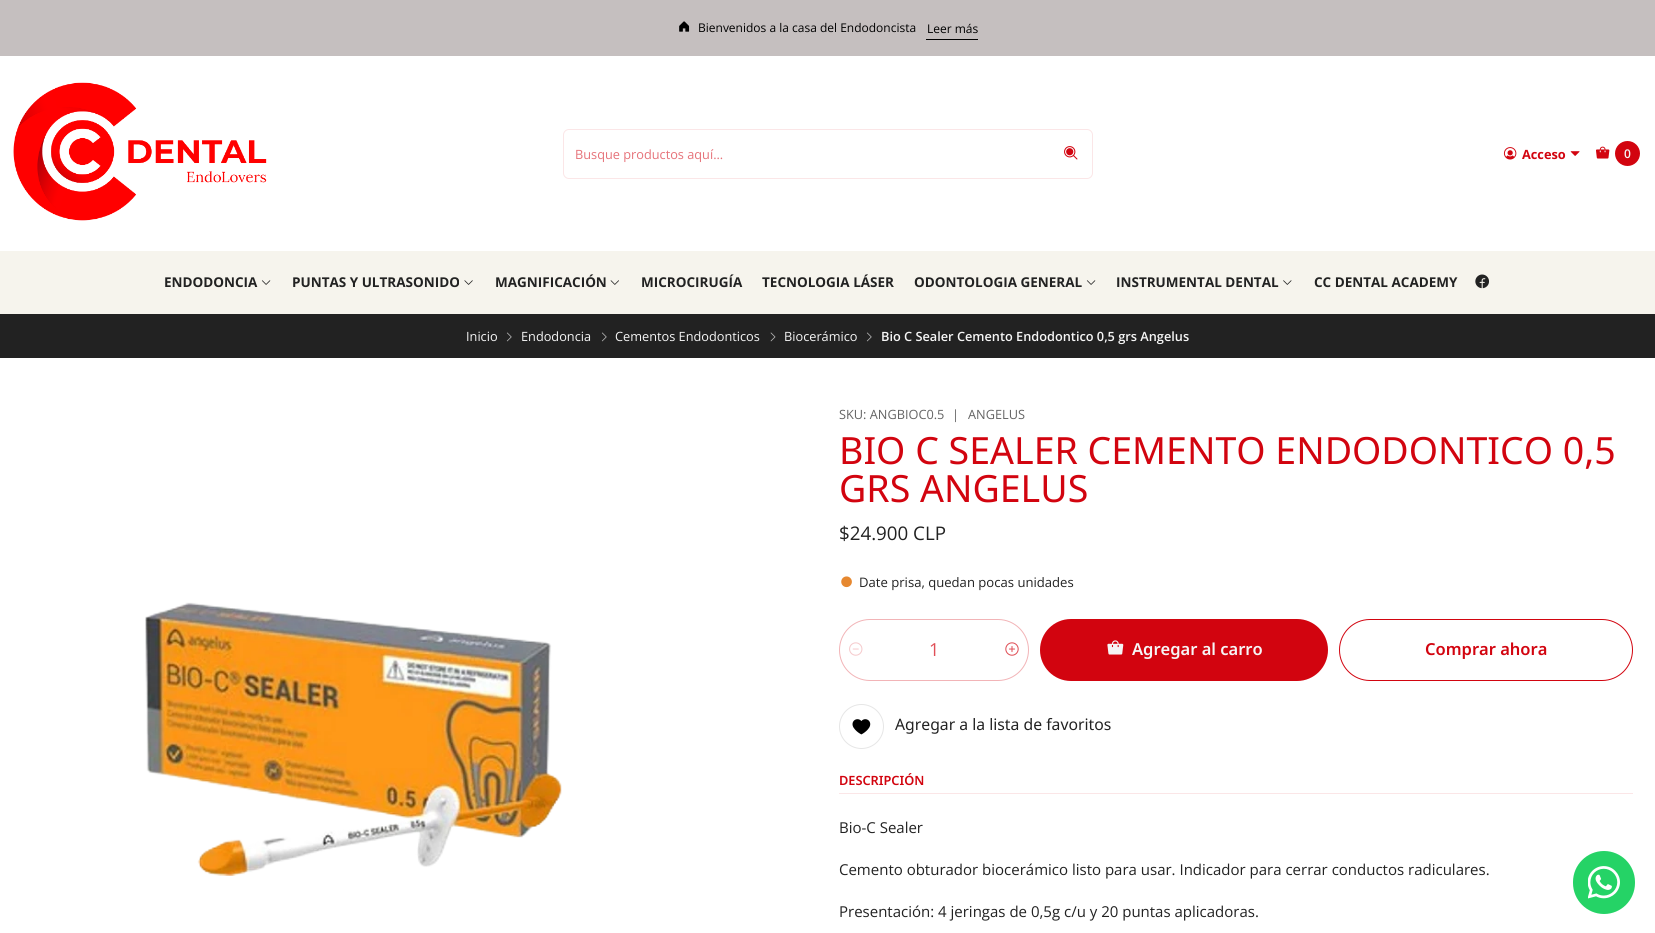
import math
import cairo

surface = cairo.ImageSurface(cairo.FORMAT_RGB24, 1655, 933)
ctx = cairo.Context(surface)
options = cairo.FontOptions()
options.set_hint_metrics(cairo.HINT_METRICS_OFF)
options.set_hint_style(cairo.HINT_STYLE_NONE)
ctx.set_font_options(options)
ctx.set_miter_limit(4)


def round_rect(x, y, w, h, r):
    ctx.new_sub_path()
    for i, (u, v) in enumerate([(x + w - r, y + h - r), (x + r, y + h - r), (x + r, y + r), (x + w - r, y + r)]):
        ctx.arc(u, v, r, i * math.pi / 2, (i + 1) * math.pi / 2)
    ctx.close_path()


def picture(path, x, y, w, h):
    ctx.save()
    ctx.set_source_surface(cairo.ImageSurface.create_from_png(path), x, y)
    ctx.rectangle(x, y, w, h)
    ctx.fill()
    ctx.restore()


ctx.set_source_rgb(1, 1, 1)
ctx.paint()
ctx.set_source_rgb(0.773, 0.749, 0.749)
ctx.rectangle(0, 0, 1655, 56)
ctx.fill()
picture("img1.png", 679, 21, 11, 11)
ctx.select_font_face("Open Sans")
ctx.set_font_size(12)
ctx.set_source_rgb(0, 0, 0)
ctx.move_to(698, 32)
ctx.show_text("Bienvenidos a la casa del Endodoncista")
ctx.rectangle(926, 39, 52, 1)
ctx.fill()
ctx.move_to(927, 33)
ctx.show_text("Leer más")
picture("img2.png", 13, 82, 254, 139)
round_rect(563.5, 129.5, 529, 49, 5.5)
ctx.set_source_rgb(0.984, 0.902, 0.906)
ctx.set_line_width(1)
ctx.stroke()
ctx.set_font_size(12.75)
ctx.set_source_rgb(0.902, 0.447, 0.475)
ctx.move_to(575, 159)
ctx.show_text("Busque productos aquí...")
picture("img3.png", 1064, 146, 14, 14)
picture("img4.png", 1503, 147, 14, 13)
ctx.select_font_face("Open Sans", cairo.FONT_SLANT_NORMAL, cairo.FONT_WEIGHT_BOLD)
ctx.set_source_rgb(0.824, 0.016, 0.059)
ctx.move_to(1522, 159)
ctx.show_text("Acceso")
picture("img5.png", 1570, 151, 10, 5)
picture("img6.png", 1596, 146, 14, 13)
ctx.arc(1627.5, 153.5, 12.5, 0, 2 * math.pi)
ctx.fill()
ctx.select_font_face("Open Sans SemiBold")
ctx.set_font_size(12)
ctx.set_source_rgb(0.961, 0.961, 0.961)
ctx.move_to(1624, 158)
ctx.show_text("0")
ctx.set_source_rgb(0.961, 0.957, 0.929)
ctx.rectangle(0, 251, 1655, 63)
ctx.fill()
ctx.select_font_face("Open Sans", cairo.FONT_SLANT_NORMAL, cairo.FONT_WEIGHT_BOLD)
ctx.set_font_size(13.5)
ctx.set_source_rgb(0.133, 0.133, 0.133)
ctx.move_to(164, 287)
ctx.show_text("ENDODONCIA")
picture("img7.png", 261, 280, 10, 5)
ctx.move_to(292, 287)
ctx.show_text("PUNTAS Y ULTRASONIDO")
picture("img8.png", 464, 280, 9, 5)
ctx.move_to(495, 287)
ctx.show_text("MAGNIFICACIÓN")
picture("img9.png", 610, 280, 9, 5)
ctx.move_to(641, 287)
ctx.show_text("MICROCIRUGÍA")
ctx.move_to(762, 287)
ctx.show_text("TECNOLOGIA LÁSER")
ctx.move_to(914, 287)
ctx.show_text("ODONTOLOGIA GENERAL")
picture("img7.png", 1086, 280, 10, 5)
ctx.move_to(1116, 287)
ctx.show_text("INSTRUMENTAL DENTAL")
picture("img10.png", 1283, 280, 9, 5)
ctx.move_to(1314, 287)
ctx.show_text("CC DENTAL ACADEMY")
picture("img11.png", 1475, 274, 14, 15)
ctx.rectangle(0, 314, 1655, 44)
ctx.fill()
ctx.select_font_face("Open Sans")
ctx.set_font_size(12.75)
ctx.set_source_rgb(0.961, 0.961, 0.961)
ctx.move_to(466, 341)
ctx.show_text("Inicio")
picture("img12.png", 506, 332, 6, 10)
ctx.move_to(521, 341)
ctx.show_text("Endodoncia")
picture("img12.png", 601, 332, 6, 10)
ctx.move_to(615, 341)
ctx.show_text("Cementos Endodonticos")
picture("img13.png", 770, 332, 6, 10)
ctx.move_to(784, 341)
ctx.show_text("Biocerámico")
picture("img12.png", 866, 332, 6, 10)
ctx.select_font_face("Open Sans SemiBold")
ctx.move_to(881, 341)
ctx.show_text("Bio C Sealer Cemento Endodontico 0,5 grs Angelus")
picture("img14.png", 145, 602, 417, 274)
ctx.select_font_face("Open Sans")
ctx.set_source_rgb(0.392, 0.392, 0.392)
ctx.move_to(839, 419)
ctx.show_text("SKU: ANGBIOC0.5")
ctx.move_to(952, 419)
ctx.show_text("|")
ctx.move_to(968, 419)
ctx.show_text("ANGELUS")
ctx.select_font_face("Noto Sans")
ctx.set_font_size(37.5)
ctx.set_source_rgb(0.824, 0.016, 0.059)
ctx.move_to(839, 464)
ctx.show_text("BIO C SEALER CEMENTO ENDODONTICO 0,5")
ctx.move_to(839, 502)
ctx.show_text("GRS ANGELUS")
ctx.select_font_face("Open Sans")
ctx.set_font_size(18.75)
ctx.set_source_rgb(0.133, 0.133, 0.133)
ctx.move_to(839, 540)
ctx.show_text("$24.900 CLP")
picture("img15.png", 841, 576, 11, 12)
ctx.set_font_size(13.1)
ctx.move_to(859, 587)
ctx.show_text("Date prisa, quedan pocas unidades")
round_rect(839.5, 619.5, 189, 61, 30.5)
ctx.set_source_rgb(0.949, 0.706, 0.718)
ctx.stroke()
picture("img16.png", 849, 642, 14, 14)
ctx.set_font_size(18)
ctx.set_source_rgb(0.878, 0.31, 0.341)
ctx.move_to(929, 656)
ctx.show_text("1")
picture("img17.png", 1005, 642, 14, 14)
ctx.set_source_rgb(0.824, 0.016, 0.059)
round_rect(1040, 619, 288, 62, 31)
ctx.fill()
picture("img18.png", 1107, 640, 17, 15)
ctx.select_font_face("Noto Sans SemiBold")
ctx.set_font_size(16.5)
ctx.set_source_rgb(0.961, 0.961, 0.961)
ctx.move_to(1132, 655)
ctx.show_text("Agregar al carro")
round_rect(1339.5, 619.5, 293, 61, 30.5)
ctx.set_source_rgb(0.824, 0.016, 0.059)
ctx.stroke()
ctx.move_to(1425, 655)
ctx.show_text("Comprar ahora")
ctx.new_path()
ctx.arc(861.5, 726.5, 22, 0, 2 * math.pi)
ctx.set_source_rgb(0.902, 0.902, 0.902)
ctx.stroke()
picture("img19.png", 852, 719, 19, 16)
ctx.select_font_face("Noto Sans")
ctx.set_font_size(15.75)
ctx.set_source_rgb(0.133, 0.133, 0.133)
ctx.move_to(895, 730)
ctx.show_text("Agregar a la lista de favoritos")
ctx.set_source_rgb(0.984, 0.902, 0.906)
ctx.rectangle(839, 793, 794, 1)
ctx.fill()
ctx.select_font_face("Noto Sans SemiBold")
ctx.set_font_size(12.75)
ctx.set_source_rgb(0.824, 0.016, 0.059)
ctx.move_to(839, 785)
ctx.show_text("DESCRIPCIÓN")
ctx.select_font_face("Open Sans")
ctx.set_font_size(15)
ctx.set_source_rgb(0.133, 0.133, 0.133)
ctx.move_to(839, 833)
ctx.show_text("Bio-C Sealer")
ctx.move_to(839, 875)
ctx.show_text("Cemento obturador biocerámico listo para usar. Indicador para cerrar conductos radiculares.")
ctx.move_to(839, 917)
ctx.show_text("Presentación: 4 jeringas de 0,5g c/u y 20 puntas aplicadoras.")
ctx.set_source_rgb(0.145, 0.827, 0.4)
round_rect(1573, 851, 62, 63, 31)
ctx.fill()
picture("img20.png", 1588, 866, 32, 33)
surface.write_to_png("page.png")
